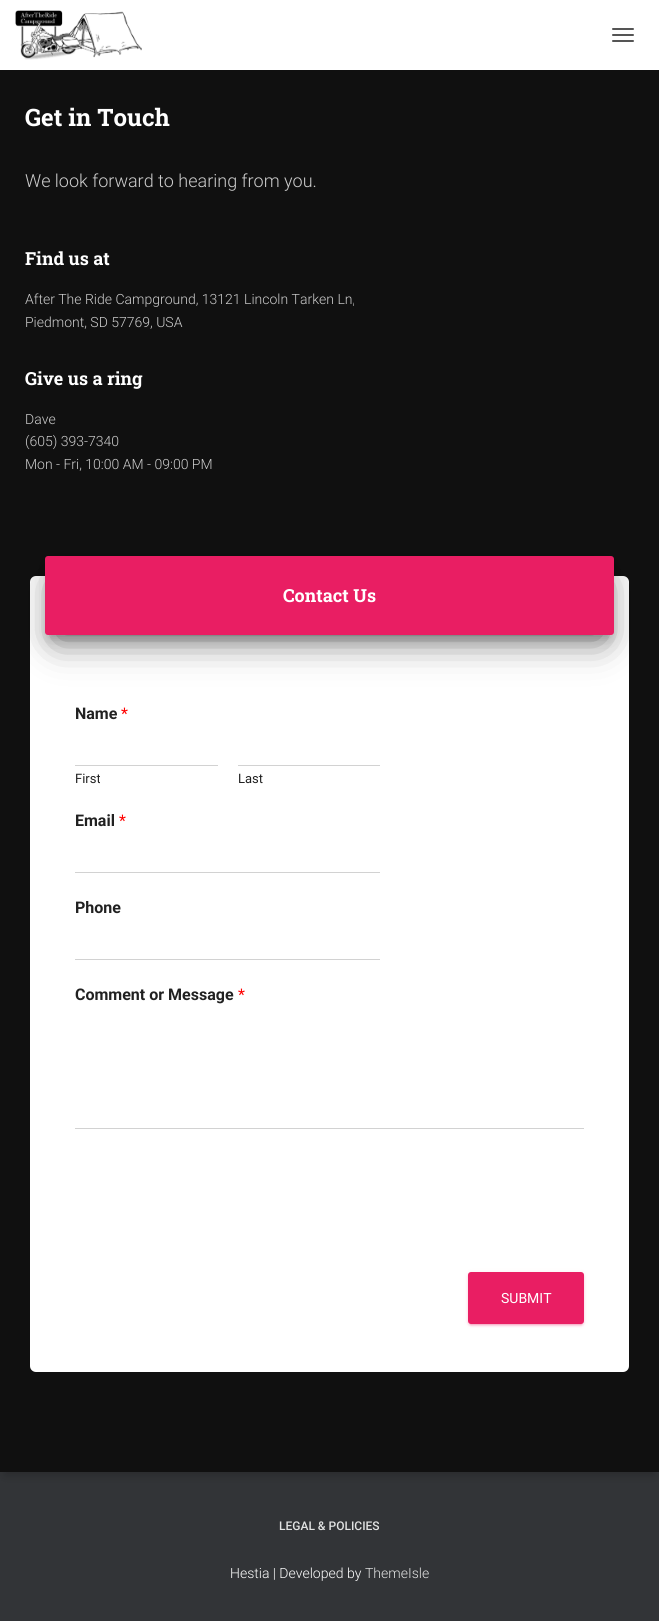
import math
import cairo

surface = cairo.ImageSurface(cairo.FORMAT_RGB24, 659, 1621)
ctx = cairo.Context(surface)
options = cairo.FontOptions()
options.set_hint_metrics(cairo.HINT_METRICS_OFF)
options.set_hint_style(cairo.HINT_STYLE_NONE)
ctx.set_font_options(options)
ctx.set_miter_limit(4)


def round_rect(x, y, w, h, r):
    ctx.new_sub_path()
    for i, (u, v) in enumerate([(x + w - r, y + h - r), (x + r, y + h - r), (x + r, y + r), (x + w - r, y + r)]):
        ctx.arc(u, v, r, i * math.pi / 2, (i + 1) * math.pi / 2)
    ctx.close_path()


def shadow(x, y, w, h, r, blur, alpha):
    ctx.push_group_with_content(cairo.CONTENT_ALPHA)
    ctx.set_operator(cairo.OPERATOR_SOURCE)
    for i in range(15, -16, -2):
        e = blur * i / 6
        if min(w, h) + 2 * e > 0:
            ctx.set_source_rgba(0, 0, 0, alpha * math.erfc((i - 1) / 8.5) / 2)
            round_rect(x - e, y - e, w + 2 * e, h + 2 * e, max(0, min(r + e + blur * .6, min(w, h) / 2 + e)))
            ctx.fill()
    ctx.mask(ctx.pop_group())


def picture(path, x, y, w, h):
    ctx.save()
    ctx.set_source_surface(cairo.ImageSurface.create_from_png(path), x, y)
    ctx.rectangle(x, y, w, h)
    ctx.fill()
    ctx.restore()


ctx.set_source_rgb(0.196, 0.204, 0.216)
ctx.paint()
ctx.set_source_rgb(0, 0, 0)
shadow(5, -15, 649, 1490, 0, 5, 0.2)
ctx.set_source_rgb(1, 1, 1)
ctx.rectangle(0, 0, 659, 70)
ctx.fill()
picture("img1.png", 15, 10, 127, 50)
ctx.set_source_rgb(0.333, 0.333, 0.333)
round_rect(612, 28, 22, 2, 1)
ctx.fill()
round_rect(612, 34, 22, 2, 1)
ctx.fill()
round_rect(612, 40, 22, 2, 1)
ctx.fill()
ctx.set_source_rgb(0.063, 0.063, 0.063)
ctx.rectangle(0, 70, 659, 1402)
ctx.fill()
ctx.select_font_face("Roboto Slab", cairo.FONT_SLANT_NORMAL, cairo.FONT_WEIGHT_BOLD)
ctx.set_font_size(24)
ctx.set_source_rgb(1, 1, 1)
ctx.move_to(25, 126)
ctx.show_text("Get in Touch")
ctx.select_font_face("Roboto Light")
ctx.set_font_size(18)
ctx.set_source_rgb(0.8, 0.8, 0.8)
ctx.move_to(25, 187)
ctx.show_text("We look forward to hearing from you.")
ctx.select_font_face("Roboto Slab", cairo.FONT_SLANT_NORMAL, cairo.FONT_WEIGHT_BOLD)
ctx.set_source_rgb(1, 1, 1)
ctx.move_to(25, 265)
ctx.show_text("Find us at")
ctx.select_font_face("Roboto Light")
ctx.set_font_size(14)
ctx.set_source_rgb(0.8, 0.8, 0.8)
ctx.move_to(25, 304)
ctx.show_text("After The Ride Campground, 13121 Lincoln Tarken Ln,")
ctx.move_to(25, 327)
ctx.show_text("Piedmont, SD 57769, USA")
ctx.select_font_face("Roboto Slab", cairo.FONT_SLANT_NORMAL, cairo.FONT_WEIGHT_BOLD)
ctx.set_font_size(18)
ctx.set_source_rgb(1, 1, 1)
ctx.move_to(25, 385)
ctx.show_text("Give us a ring")
ctx.select_font_face("Roboto Light")
ctx.set_font_size(14)
ctx.set_source_rgb(0.8, 0.8, 0.8)
ctx.move_to(25, 424)
ctx.show_text("Dave")
ctx.move_to(25, 446)
ctx.show_text("(605) 393-7340")
ctx.move_to(25, 469)
ctx.show_text("Mon - Fri, 10:00 AM - 09:00 PM")
ctx.set_source_rgb(1, 1, 1)
round_rect(30, 576, 599, 796, 6)
ctx.fill()
ctx.set_source_rgb(0, 0, 0)
shadow(50, 569, 559, 69, 0, 5, 0.2)
shadow(45, 560, 569, 79, 3, 12.5, 0.12)
shadow(57, 584, 545, 55, 0, 19, 0.56)
ctx.set_source_rgb(0.914, 0.118, 0.388)
round_rect(45, 556, 569, 79, 3)
ctx.fill()
ctx.select_font_face("Roboto Slab", cairo.FONT_SLANT_NORMAL, cairo.FONT_WEIGHT_BOLD)
ctx.set_font_size(18)
ctx.set_source_rgb(1, 1, 1)
ctx.move_to(283, 602)
ctx.show_text("Contact Us")
ctx.select_font_face("Roboto", cairo.FONT_SLANT_NORMAL, cairo.FONT_WEIGHT_BOLD)
ctx.set_font_size(16)
ctx.set_source_rgb(0.129, 0.129, 0.129)
ctx.move_to(75, 719)
ctx.show_text("Name")
ctx.select_font_face("Roboto")
ctx.set_source_rgb(1, 0, 0)
ctx.move_to(121, 719)
ctx.show_text("*")
ctx.set_source_rgb(0.824, 0.824, 0.824)
ctx.rectangle(75, 765, 143, 1)
ctx.fill()
ctx.set_font_size(13)
ctx.set_source_rgb(0.129, 0.129, 0.129)
ctx.move_to(75, 783)
ctx.show_text("First")
ctx.set_source_rgb(0.824, 0.824, 0.824)
ctx.rectangle(238, 765, 142, 1)
ctx.fill()
ctx.set_source_rgb(0.129, 0.129, 0.129)
ctx.move_to(238, 783)
ctx.show_text("Last")
ctx.select_font_face("Roboto", cairo.FONT_SLANT_NORMAL, cairo.FONT_WEIGHT_BOLD)
ctx.set_font_size(16)
ctx.move_to(75, 826)
ctx.show_text("Email")
ctx.select_font_face("Roboto")
ctx.set_source_rgb(1, 0, 0)
ctx.move_to(119, 826)
ctx.show_text("*")
ctx.set_source_rgb(0.824, 0.824, 0.824)
ctx.rectangle(75, 872, 305, 1)
ctx.fill()
ctx.select_font_face("Roboto", cairo.FONT_SLANT_NORMAL, cairo.FONT_WEIGHT_BOLD)
ctx.set_source_rgb(0.129, 0.129, 0.129)
ctx.move_to(75, 913)
ctx.show_text("Phone")
ctx.set_source_rgb(0.824, 0.824, 0.824)
ctx.rectangle(75, 959, 305, 1)
ctx.fill()
ctx.set_source_rgb(0.129, 0.129, 0.129)
ctx.move_to(75, 1000)
ctx.show_text("Comment or Message")
ctx.select_font_face("Roboto")
ctx.set_source_rgb(1, 0, 0)
ctx.move_to(238, 1000)
ctx.show_text("*")
ctx.set_source_rgb(0.824, 0.824, 0.824)
ctx.rectangle(75, 1128, 509, 1)
ctx.fill()
ctx.set_source_rgb(0.914, 0.118, 0.388)
shadow(468, 1273, 116, 52, 3, 2.5, 0.12)
shadow(470, 1277, 112, 48, 1, 0.5, 0.2)
shadow(468, 1274, 116, 52, 3, 1, 0.14)
ctx.set_source_rgb(0.914, 0.118, 0.388)
round_rect(468, 1272, 116, 52, 3)
ctx.fill()
ctx.set_font_size(14)
ctx.set_source_rgb(1, 1, 1)
ctx.move_to(501, 1303)
ctx.show_text("SUBMIT")
ctx.select_font_face("Roboto Medium")
ctx.set_font_size(12)
ctx.set_source_rgb(0.886, 0.89, 0.89)
ctx.move_to(279, 1530)
ctx.show_text("LEGAL & POLICIES")
ctx.select_font_face("Roboto Light")
ctx.set_font_size(14)
ctx.set_source_rgb(1, 1, 1)
ctx.move_to(230, 1578)
ctx.show_text("Hestia | Developed by")
ctx.set_source_rgb(0.886, 0.89, 0.89)
ctx.move_to(365, 1578)
ctx.show_text("ThemeIsle")
surface.write_to_png("page.png")
